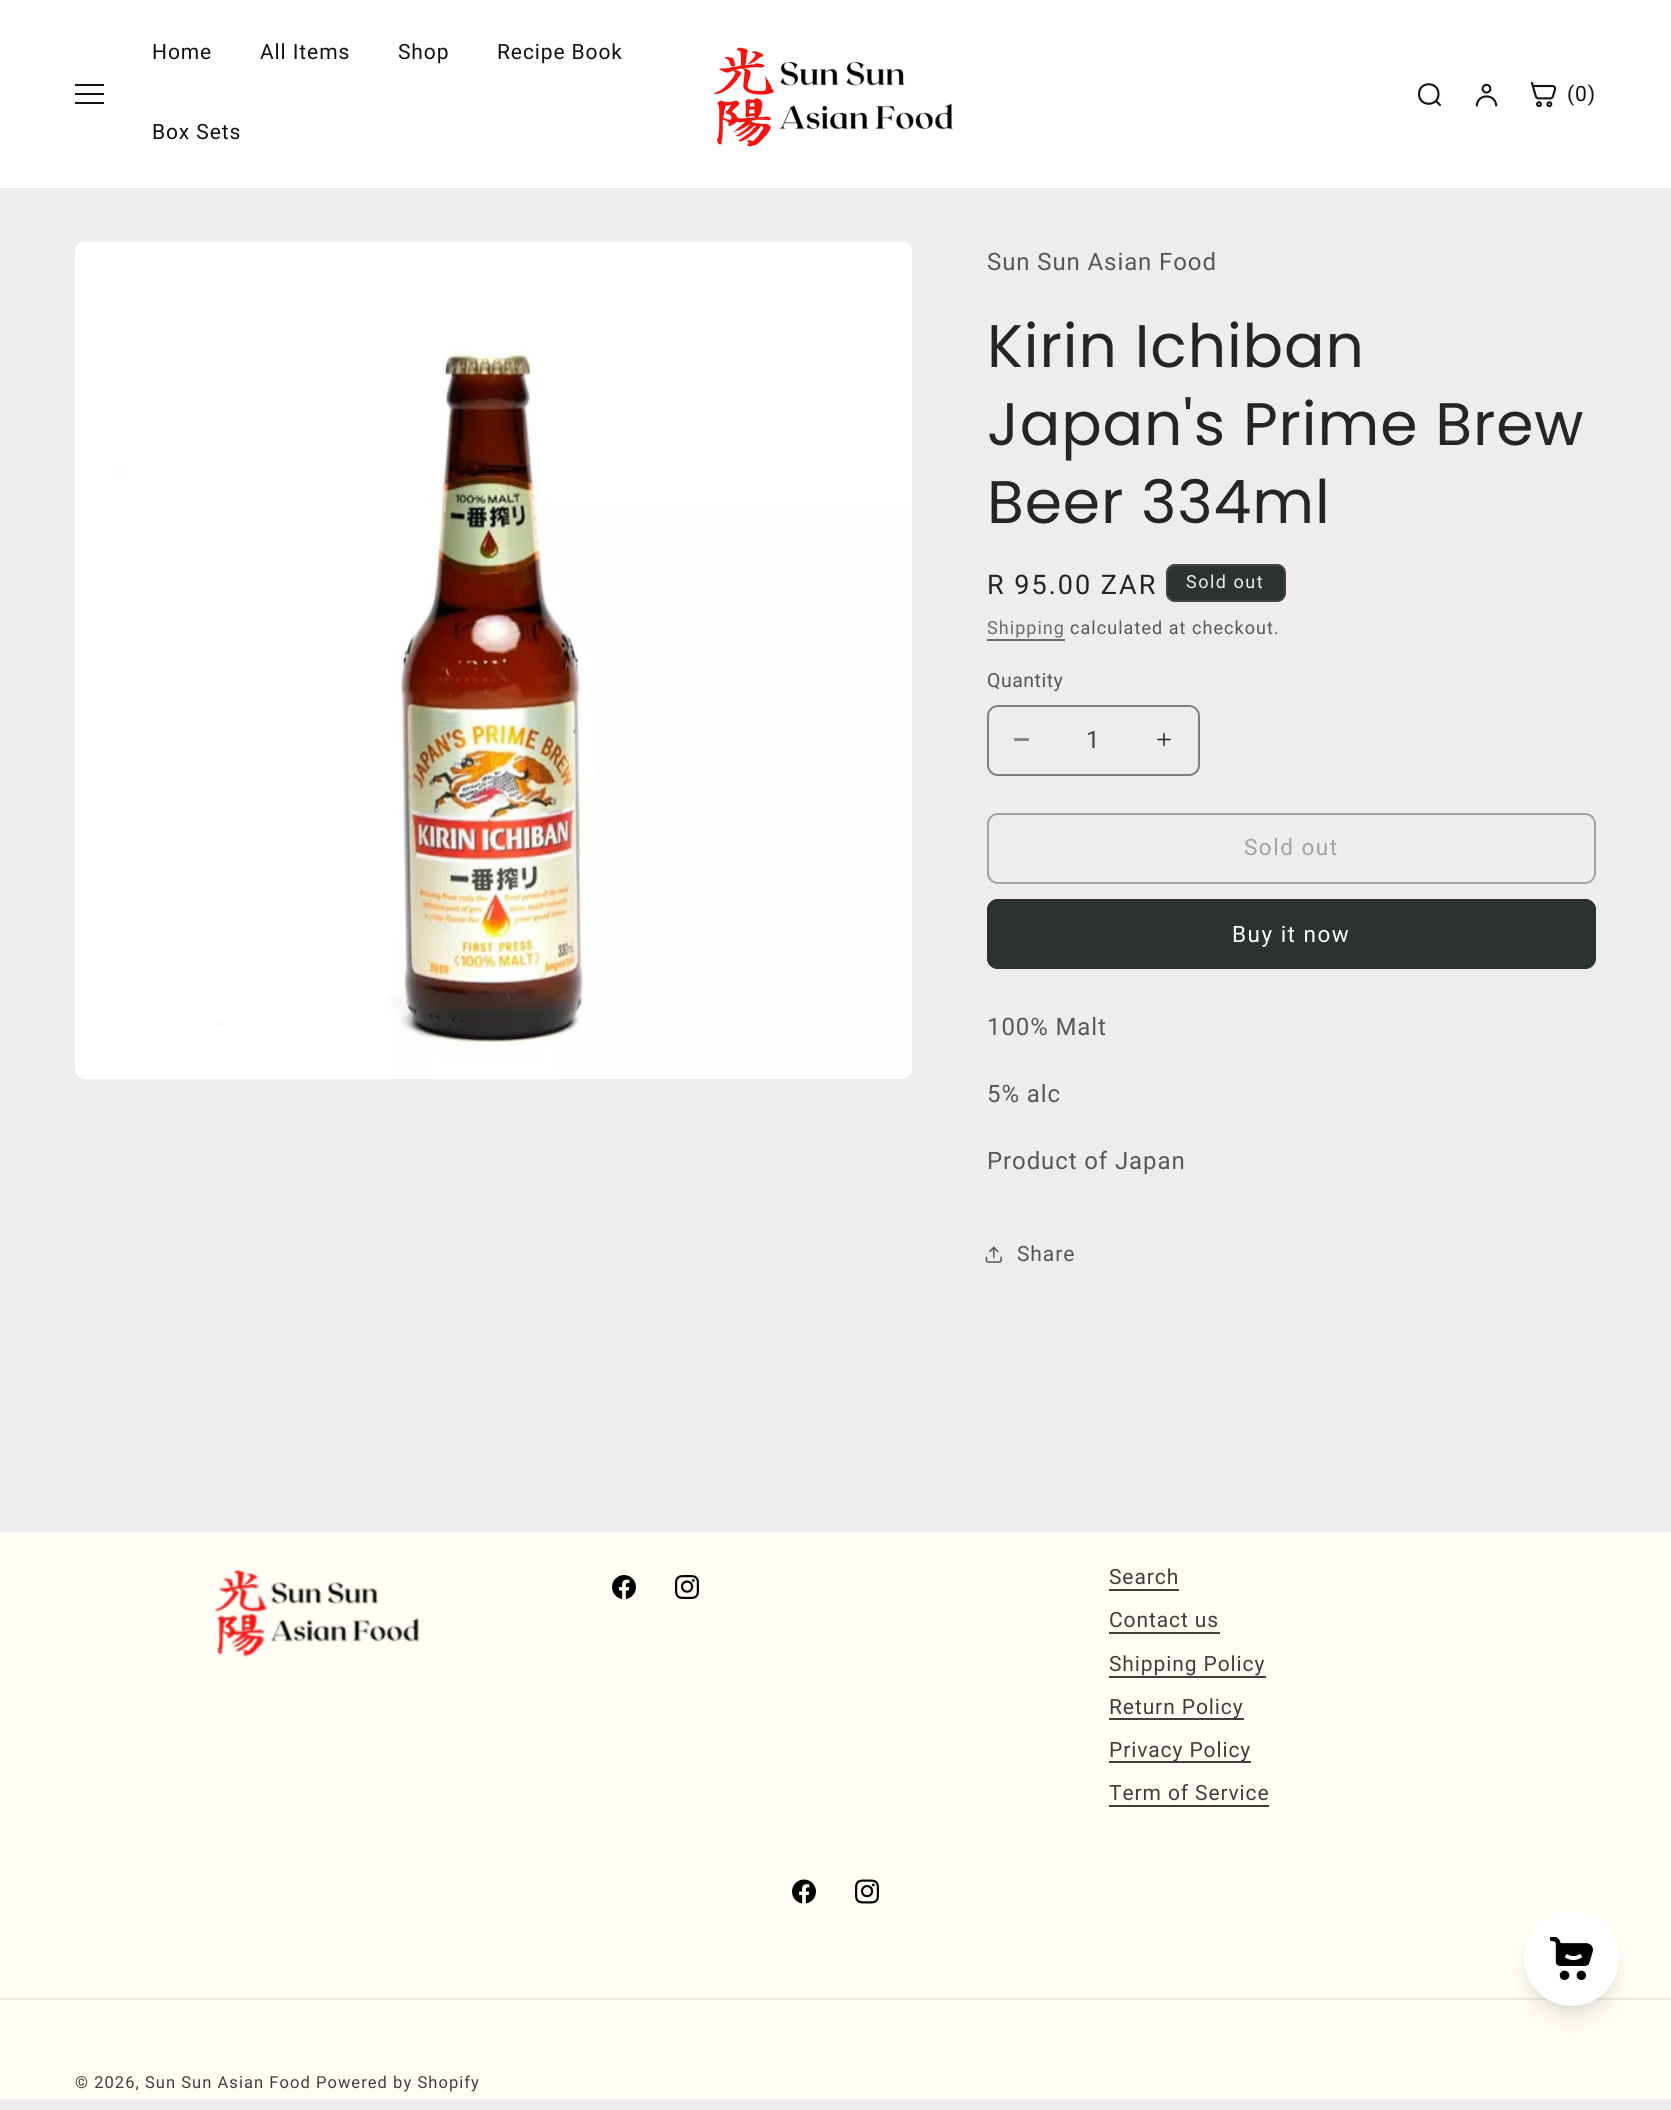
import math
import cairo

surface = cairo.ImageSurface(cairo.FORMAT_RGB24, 1671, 2110)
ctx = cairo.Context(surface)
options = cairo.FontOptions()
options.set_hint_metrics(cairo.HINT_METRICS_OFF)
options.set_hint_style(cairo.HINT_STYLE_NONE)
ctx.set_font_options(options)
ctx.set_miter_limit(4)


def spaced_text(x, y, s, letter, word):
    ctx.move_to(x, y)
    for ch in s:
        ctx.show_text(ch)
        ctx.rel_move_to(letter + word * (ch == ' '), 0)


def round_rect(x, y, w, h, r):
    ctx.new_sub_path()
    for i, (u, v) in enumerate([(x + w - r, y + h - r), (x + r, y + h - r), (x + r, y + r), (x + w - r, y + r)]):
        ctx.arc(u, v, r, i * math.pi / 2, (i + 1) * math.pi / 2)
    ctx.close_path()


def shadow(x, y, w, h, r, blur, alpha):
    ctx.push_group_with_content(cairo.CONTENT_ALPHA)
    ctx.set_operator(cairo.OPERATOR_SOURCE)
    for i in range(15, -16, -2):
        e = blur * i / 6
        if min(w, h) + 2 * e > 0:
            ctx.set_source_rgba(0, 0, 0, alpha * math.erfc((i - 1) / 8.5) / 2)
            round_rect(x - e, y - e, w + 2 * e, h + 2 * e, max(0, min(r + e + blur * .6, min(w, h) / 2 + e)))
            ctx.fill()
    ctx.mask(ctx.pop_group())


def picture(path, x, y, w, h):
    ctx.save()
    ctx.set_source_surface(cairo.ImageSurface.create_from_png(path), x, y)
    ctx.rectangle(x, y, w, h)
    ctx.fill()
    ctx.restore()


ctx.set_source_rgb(0.937, 0.925, 0.925)
ctx.paint()
ctx.set_source_rgb(1, 1, 1)
ctx.rectangle(0, 0, 1671, 188)
ctx.fill()
ctx.set_source_rgb(0.071, 0.071, 0.071)
ctx.rectangle(75, 93, 29, 2)
ctx.fill()
ctx.rectangle(75, 84, 29, 2)
ctx.fill()
ctx.rectangle(75, 102, 29, 2)
ctx.fill()
ctx.select_font_face("Roboto")
ctx.set_font_size(21)
spaced_text(152, 59, "Home", 0.9, 0)
spaced_text(260, 59, "All Items", 0.9, 0)
spaced_text(398, 59, "Shop", 0.9, 0)
spaced_text(497, 59, "Recipe Book", 0.9, 0)
spaced_text(152, 139, "Box Sets", 0.9, 0)
picture("img1.png", 713, 47, 240, 100)
ctx.new_path()
ctx.move_to(1436, 101)
ctx.line_to(1440, 105)
ctx.move_to(1438.5, 94)
ctx.curve_to(1438.5, 107, 1419, 107, 1419, 94)
ctx.curve_to(1419, 81, 1438.5, 81, 1438.5, 94)
ctx.set_line_width(2.1)
ctx.set_line_cap(cairo.LINE_CAP_ROUND)
ctx.set_line_join(cairo.LINE_JOIN_ROUND)
ctx.stroke()
picture("img2.png", 1475, 83, 23, 24)
picture("img3.png", 1530, 81, 27, 27)
spaced_text(1567, 101, "(0)", 0.9, 0)
picture("img4.png", 75, 242, 837, 837)
ctx.set_font_size(24)
ctx.set_source_rgb(0.345, 0.341, 0.341)
spaced_text(987, 270, "Sun Sun Asian Food", 0.9, 0)
ctx.select_font_face("Poppins")
ctx.set_font_size(60)
ctx.set_source_rgb(0.145, 0.145, 0.145)
spaced_text(987, 367, "Kirin Ichiban", 0.9, 0)
spaced_text(987, 445, "Japan's Prime Brew", 0.9, 0)
spaced_text(987, 523, "Beer 334ml", 0.9, 0)
ctx.select_font_face("Roboto")
ctx.set_font_size(27)
spaced_text(987, 594, "R 95.00 ZAR", 2, 0)
ctx.set_source_rgb(0.173, 0.2, 0.184)
round_rect(1166, 564, 120, 38, 9)
ctx.fill()
round_rect(1167, 565, 118, 36, 8)
ctx.set_source_rgba(0.937, 0.925, 0.925, 0.1)
ctx.set_line_width(2)
ctx.set_line_cap(cairo.LINE_CAP_BUTT)
ctx.set_line_join(cairo.LINE_JOIN_MITER)
ctx.stroke()
ctx.set_font_size(18)
ctx.set_source_rgb(0.937, 0.925, 0.925)
spaced_text(1186, 588, "Sold out", 1.5, 0)
ctx.set_source_rgb(0.408, 0.427, 0.424)
spaced_text(987, 634, "Shipping", 1.05, 0)
ctx.rectangle(987, 639, 78, 2)
ctx.fill()
ctx.set_source_rgb(0.345, 0.341, 0.341)
spaced_text(1070, 634, "calculated at checkout.", 1.05, 0)
ctx.set_font_size(19.5)
spaced_text(987, 687, "Quantity", 0.5, 0)
ctx.set_source_rgb(0.541, 0.537, 0.537)
ctx.rectangle(1014, 738, 15, 3)
ctx.fill()
picture("img5.png", 1157, 732, 14, 15)
round_rect(988, 706, 211, 69, 10)
ctx.set_source_rgb(0.502, 0.498, 0.498)
ctx.stroke()
ctx.set_font_size(24)
ctx.set_source_rgb(0.263, 0.263, 0.263)
ctx.move_to(1086, 748)
ctx.show_text("1")
round_rect(988, 814, 607, 69, 10)
ctx.set_source_rgb(0.627, 0.631, 0.631)
ctx.stroke()
ctx.set_font_size(22.5)
spaced_text(1244, 855, "Sold out", 1.5, 0)
ctx.set_source_rgb(0.173, 0.2, 0.184)
round_rect(987, 899, 609, 70, 11)
ctx.fill()
round_rect(988, 900, 607, 68, 10)
ctx.stroke()
ctx.set_source_rgb(1, 1, 1)
spaced_text(1232, 942, "Buy it now", 1.5, 0)
ctx.set_font_size(24)
ctx.set_source_rgb(0.345, 0.341, 0.341)
spaced_text(987, 1035, "100% Malt", 0.9, 0)
spaced_text(987, 1102, "5% alc", 0.9, 0)
spaced_text(987, 1169, "Product of Japan", 0.9, 0)
picture("img6.png", 985, 1246, 17, 17)
ctx.set_font_size(21)
ctx.set_source_rgb(0.314, 0.337, 0.333)
spaced_text(1017, 1261, "Share", 0.9, 0)
ctx.set_source_rgb(1, 0.992, 0.957)
ctx.rectangle(0, 1532, 1671, 567)
ctx.fill()
picture("img7.png", 214, 1570, 205, 87)
picture("img8.png", 612, 1575, 24, 24)
picture("img9.png", 675, 1575, 24, 24)
ctx.set_source_rgb(0.251, 0.247, 0.239)
spaced_text(1109, 1584, "Search", 0.9, 0)
ctx.rectangle(1109, 1589, 70, 2)
ctx.fill()
spaced_text(1109, 1627, "Contact us", 0.9, 0)
ctx.rectangle(1109, 1632, 111, 2)
ctx.fill()
spaced_text(1109, 1671, "Shipping Policy", 0.9, 0)
ctx.rectangle(1109, 1676, 157, 2)
ctx.fill()
ctx.rectangle(1109, 1718, 135, 2)
ctx.fill()
spaced_text(1109, 1714, "Return Policy", 0.9, 0)
ctx.rectangle(1109, 1761, 142, 2)
ctx.fill()
spaced_text(1109, 1757, "Privacy Policy", 0.9, 0)
spaced_text(1109, 1800, "Term of Service", 0.9, 0)
ctx.rectangle(1109, 1805, 160, 2)
ctx.fill()
picture("img10.png", 792, 1879, 24, 25)
picture("img11.png", 855, 1879, 24, 25)
ctx.set_source_rgb(0.922, 0.914, 0.878)
ctx.rectangle(0, 1998, 1671, 2)
ctx.fill()
ctx.set_font_size(16.5)
ctx.set_source_rgb(0.251, 0.247, 0.239)
spaced_text(75, 2088, "© 2026, Sun Sun Asian Food", 1.05, 0)
spaced_text(316, 2088, "Powered by Shopify", 1.05, 0)
ctx.set_source_rgb(0, 0, 0)
shadow(1530, 1923, 83, 83, 41.5, 4.5, 0.1)
shadow(1529, 1931, 85, 85, 42.5, 11, 0.1)
ctx.set_source_rgb(1, 1, 1)
ctx.arc(1571.5, 1958.5, 47.5, 0, 2 * math.pi)
ctx.fill()
picture("img12.png", 1550, 1937, 43, 43)
surface.write_to_png("page.png")
